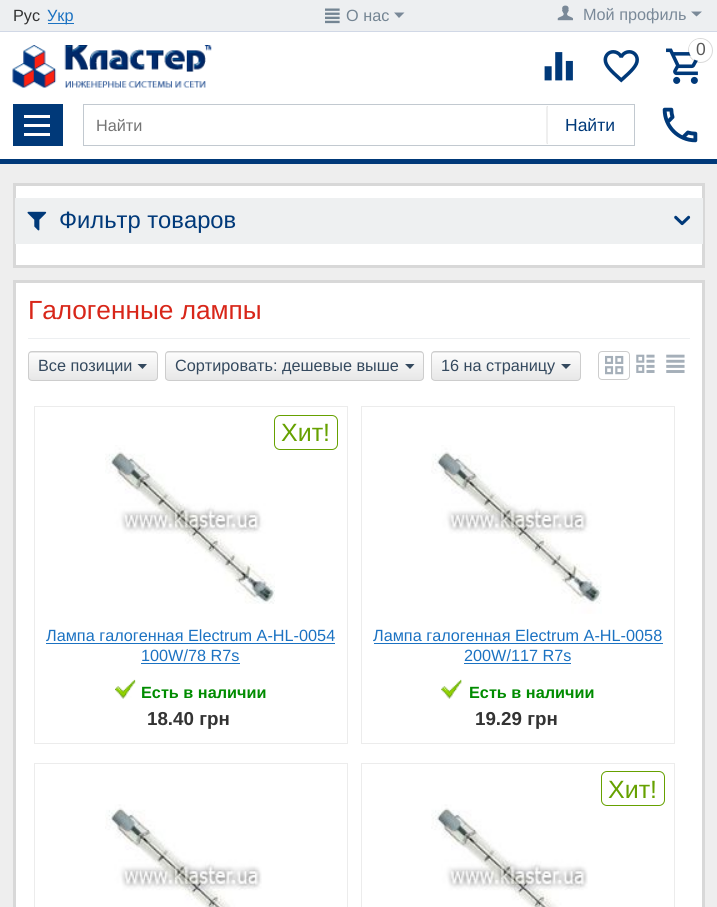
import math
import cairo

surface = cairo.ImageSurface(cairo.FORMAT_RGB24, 717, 907)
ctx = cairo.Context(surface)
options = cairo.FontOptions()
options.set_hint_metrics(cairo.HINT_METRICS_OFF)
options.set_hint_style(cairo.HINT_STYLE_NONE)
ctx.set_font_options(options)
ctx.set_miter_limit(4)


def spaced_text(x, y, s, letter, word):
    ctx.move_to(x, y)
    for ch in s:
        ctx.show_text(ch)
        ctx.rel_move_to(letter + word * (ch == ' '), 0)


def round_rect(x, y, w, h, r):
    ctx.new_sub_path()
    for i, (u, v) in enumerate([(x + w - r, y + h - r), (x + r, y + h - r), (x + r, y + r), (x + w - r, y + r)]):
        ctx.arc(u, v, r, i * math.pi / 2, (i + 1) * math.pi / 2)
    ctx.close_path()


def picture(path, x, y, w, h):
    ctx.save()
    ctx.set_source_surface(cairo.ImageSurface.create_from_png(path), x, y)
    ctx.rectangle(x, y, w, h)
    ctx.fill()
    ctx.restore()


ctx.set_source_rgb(0.933, 0.933, 0.933)
ctx.paint()
ctx.set_source_rgb(0.929, 0.937, 0.945)
ctx.rectangle(0, 0, 717, 31)
ctx.fill()
ctx.select_font_face("Liberation Sans")
ctx.set_font_size(16.25)
ctx.set_source_rgb(0.2, 0.2, 0.2)
ctx.move_to(13, 21)
ctx.show_text("Рус")
ctx.set_source_rgb(0.106, 0.447, 0.761)
ctx.rectangle(48, 23, 26, 1)
ctx.fill()
ctx.move_to(47, 21)
ctx.show_text("Укр")
picture("img1.png", 325, 8, 15, 16)
ctx.set_source_rgb(0.455, 0.522, 0.576)
ctx.move_to(346, 21)
ctx.show_text("О нас")
ctx.set_source_rgb(0.478, 0.537, 0.596)
ctx.new_path()
ctx.move_to(399, 18)
ctx.line_to(394, 12.5)
ctx.line_to(404.5, 12.5)
ctx.close_path()
ctx.fill()
picture("img2.png", 557, 5, 16, 16)
ctx.move_to(583, 20)
ctx.show_text("Мой профиль")
ctx.new_path()
ctx.move_to(696.5, 16.5)
ctx.line_to(691, 11.5)
ctx.line_to(702, 11.5)
ctx.close_path()
ctx.fill()
ctx.set_source_rgb(1, 1, 1)
ctx.rectangle(0, 32, 717, 127)
ctx.fill()
ctx.set_source_rgb(0.82, 0.847, 0.902)
ctx.rectangle(0, 31, 717, 1)
ctx.fill()
picture("img3.png", 12, 45, 200, 43)
picture("img4.png", 544, 52, 29, 29)
picture("img5.png", 603, 50, 36, 33)
picture("img6.png", 666, 48, 33, 36)
ctx.arc(700.5, 50.5, 12, 0, 2 * math.pi)
ctx.set_source_rgba(0, 0, 0, 0.15)
ctx.set_line_width(1)
ctx.stroke()
ctx.set_source_rgb(1, 1, 1)
ctx.arc(700, 50, 11, 0, 2 * math.pi)
ctx.fill()
ctx.set_font_size(17.5)
ctx.set_source_rgb(0.349, 0.349, 0.349)
spaced_text(696, 55, "0", -1, 0)
ctx.set_source_rgb(0, 0.224, 0.475)
ctx.rectangle(13, 104, 50, 42)
ctx.fill()
ctx.set_source_rgb(1, 1, 1)
ctx.rectangle(24, 124, 26, 3)
ctx.fill()
ctx.rectangle(24, 115, 26, 3)
ctx.fill()
ctx.rectangle(24, 133, 26, 3)
ctx.fill()
ctx.rectangle(83.5, 104.5, 551, 41)
ctx.set_source_rgb(0.761, 0.788, 0.816)
ctx.stroke()
ctx.set_font_size(16.25)
ctx.set_source_rgb(0.451, 0.451, 0.451)
ctx.move_to(96, 131)
ctx.show_text("Найти")
ctx.new_path()
ctx.move_to(547.5, 144)
ctx.line_to(547, 142.5)
ctx.line_to(547, 107.5)
ctx.line_to(547.5, 106)
ctx.set_source_rgb(0.898, 0.898, 0.898)
ctx.set_line_width(1.2)
ctx.stroke()
ctx.set_font_size(17.5)
ctx.set_source_rgb(0, 0.224, 0.475)
ctx.move_to(565, 131)
ctx.show_text("Найти")
picture("img7.png", 662, 107, 36, 36)
ctx.rectangle(0, 159, 717, 5)
ctx.fill()
ctx.set_source_rgb(1, 1, 1)
ctx.rectangle(14.5, 184.5, 689, 82)
ctx.fill_preserve()
ctx.set_source_rgb(0.847, 0.847, 0.847)
ctx.set_line_width(3)
ctx.stroke()
ctx.set_source_rgb(0.933, 0.941, 0.945)
ctx.rectangle(15, 198, 688, 46)
ctx.fill()
picture("img8.png", 27, 211, 20, 20)
ctx.set_font_size(23.75)
ctx.set_source_rgb(0, 0.224, 0.475)
ctx.move_to(59, 228)
ctx.show_text("Фильтр товаров")
picture("img9.png", 674, 215, 17, 11)
ctx.set_source_rgb(1, 1, 1)
ctx.rectangle(14.5, 281.5, 689, 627)
ctx.fill_preserve()
ctx.set_source_rgb(0.847, 0.847, 0.847)
ctx.stroke()
ctx.set_source_rgb(0.929, 0.937, 0.945)
ctx.rectangle(28, 338, 662, 1)
ctx.fill()
ctx.set_font_size(26.25)
ctx.set_source_rgb(0.847, 0.149, 0.098)
ctx.move_to(28, 319)
ctx.show_text("Галогенные лампы")
ctx.save()
round_rect(28, 351, 130, 30, 4)
ctx.clip()
gradient = cairo.LinearGradient(93, 325, 93, 353)
gradient.add_color_stop_rgba(0, 0.988, 0.988, 0.988, 1)
gradient.add_color_stop_rgba(1, 0.906, 0.906, 0.906, 1)
ctx.set_source(gradient)
ctx.rectangle(28, 351, 130, 2)
ctx.fill()
gradient = cairo.LinearGradient(93, 353, 93, 380)
gradient.add_color_stop_rgba(0, 0.988, 0.988, 0.988, 1)
gradient.add_color_stop_rgba(1, 0.906, 0.906, 0.906, 1)
ctx.set_source(gradient)
ctx.rectangle(28, 353, 130, 27)
ctx.fill()
ctx.restore()
round_rect(28.5, 351.5, 129, 29, 3.5)
ctx.set_source_rgb(0.804, 0.804, 0.804)
ctx.set_line_width(1)
ctx.stroke()
ctx.set_font_size(16.25)
ctx.set_source_rgb(0.204, 0.286, 0.369)
ctx.move_to(38, 371)
ctx.show_text("Все позиции")
ctx.new_path()
ctx.move_to(142.5, 369)
ctx.line_to(137.5, 364)
ctx.line_to(147, 364)
ctx.close_path()
ctx.fill()
ctx.save()
round_rect(165, 351, 259, 30, 4)
ctx.clip()
gradient = cairo.LinearGradient(294, 325, 294, 353)
gradient.add_color_stop_rgba(0, 0.988, 0.988, 0.988, 1)
gradient.add_color_stop_rgba(1, 0.906, 0.906, 0.906, 1)
ctx.set_source(gradient)
ctx.rectangle(165, 351, 259, 2)
ctx.fill()
gradient = cairo.LinearGradient(294, 353, 294, 380)
gradient.add_color_stop_rgba(0, 0.988, 0.988, 0.988, 1)
gradient.add_color_stop_rgba(1, 0.906, 0.906, 0.906, 1)
ctx.set_source(gradient)
ctx.rectangle(165, 353, 259, 27)
ctx.fill()
ctx.restore()
round_rect(165.5, 351.5, 258, 29, 3.5)
ctx.set_source_rgb(0.804, 0.804, 0.804)
ctx.stroke()
ctx.set_source_rgb(0.204, 0.286, 0.369)
ctx.move_to(175, 371)
ctx.show_text("Сортировать: дешевые выше")
ctx.new_path()
ctx.move_to(410, 369)
ctx.line_to(405, 364)
ctx.line_to(414.5, 364)
ctx.close_path()
ctx.fill()
ctx.save()
round_rect(431, 351, 150, 30, 4)
ctx.clip()
gradient = cairo.LinearGradient(506, 325, 506, 353)
gradient.add_color_stop_rgba(0, 0.988, 0.988, 0.988, 1)
gradient.add_color_stop_rgba(1, 0.906, 0.906, 0.906, 1)
ctx.set_source(gradient)
ctx.rectangle(431, 351, 150, 2)
ctx.fill()
gradient = cairo.LinearGradient(506, 353, 506, 380)
gradient.add_color_stop_rgba(0, 0.988, 0.988, 0.988, 1)
gradient.add_color_stop_rgba(1, 0.906, 0.906, 0.906, 1)
ctx.set_source(gradient)
ctx.rectangle(431, 353, 150, 27)
ctx.fill()
ctx.restore()
round_rect(431.5, 351.5, 149, 29, 3.5)
ctx.set_source_rgb(0.804, 0.804, 0.804)
ctx.stroke()
ctx.set_source_rgb(0.204, 0.286, 0.369)
ctx.move_to(441, 371)
ctx.show_text("16 на страницу")
ctx.new_path()
ctx.move_to(566, 369)
ctx.line_to(561, 364)
ctx.line_to(571, 364)
ctx.close_path()
ctx.fill()
round_rect(598.5, 351.5, 31, 28, 3.5)
ctx.set_source_rgb(0.804, 0.804, 0.804)
ctx.stroke()
picture("img10.png", 605, 355, 19, 20)
picture("img11.png", 636, 354, 19, 19)
picture("img12.png", 666, 354, 19, 19)
ctx.rectangle(34.5, 406.5, 313, 337)
ctx.set_source_rgb(0.922, 0.922, 0.922)
ctx.stroke()
picture("img13.png", 105, 445, 170, 159)
round_rect(274.5, 415.5, 63, 34, 5.5)
ctx.set_source_rgb(0.4, 0.631, 0)
ctx.stroke()
ctx.set_font_size(25)
ctx.move_to(281, 441)
ctx.show_text("Хит!")
ctx.set_font_size(16.25)
ctx.set_source_rgb(0.106, 0.447, 0.761)
ctx.move_to(46, 641)
ctx.show_text("Лампа галогенная Electrum A-HL-0054")
ctx.rectangle(46, 643, 289, 1)
ctx.fill()
ctx.move_to(141, 661)
ctx.show_text("100W/78 R7s")
ctx.rectangle(141, 663, 99, 1)
ctx.fill()
picture("img14.png", 115, 679, 21, 20)
ctx.select_font_face("Liberation Sans", cairo.FONT_SLANT_NORMAL, cairo.FONT_WEIGHT_BOLD)
ctx.set_source_rgb(0, 0.549, 0)
ctx.move_to(141, 698)
ctx.show_text("Есть в наличии")
ctx.set_font_size(18.75)
ctx.set_source_rgb(0.2, 0.2, 0.2)
ctx.move_to(147, 725)
ctx.show_text("18.40 грн")
ctx.rectangle(361.5, 406.5, 313, 337)
ctx.set_source_rgb(0.922, 0.922, 0.922)
ctx.stroke()
picture("img15.png", 431, 445, 171, 169)
ctx.select_font_face("Liberation Sans")
ctx.set_font_size(16.25)
ctx.set_source_rgb(0.106, 0.447, 0.761)
ctx.move_to(373, 641)
ctx.show_text("Лампа галогенная Electrum A-HL-0058")
ctx.rectangle(374, 643, 289, 1)
ctx.fill()
ctx.move_to(464, 661)
ctx.show_text("200W/117 R7s")
ctx.rectangle(464, 663, 107, 1)
ctx.fill()
picture("img16.png", 441, 679, 21, 20)
ctx.select_font_face("Liberation Sans", cairo.FONT_SLANT_NORMAL, cairo.FONT_WEIGHT_BOLD)
ctx.set_source_rgb(0, 0.549, 0)
ctx.move_to(469, 698)
ctx.show_text("Есть в наличии")
ctx.set_font_size(18.75)
ctx.set_source_rgb(0.2, 0.2, 0.2)
ctx.move_to(475, 725)
ctx.show_text("19.29 грн")
ctx.rectangle(34.5, 763.5, 313, 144)
ctx.set_source_rgb(0.922, 0.922, 0.922)
ctx.stroke()
picture("img17.png", 105, 804, 157, 103)
ctx.rectangle(361.5, 763.5, 313, 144)
ctx.stroke()
round_rect(601.5, 771.5, 63, 34, 5.5)
ctx.set_source_rgb(0.4, 0.631, 0)
ctx.stroke()
ctx.select_font_face("Liberation Sans")
ctx.set_font_size(25)
ctx.move_to(608, 798)
ctx.show_text("Хит!")
picture("img18.png", 431, 804, 157, 103)
surface.write_to_png("page.png")
